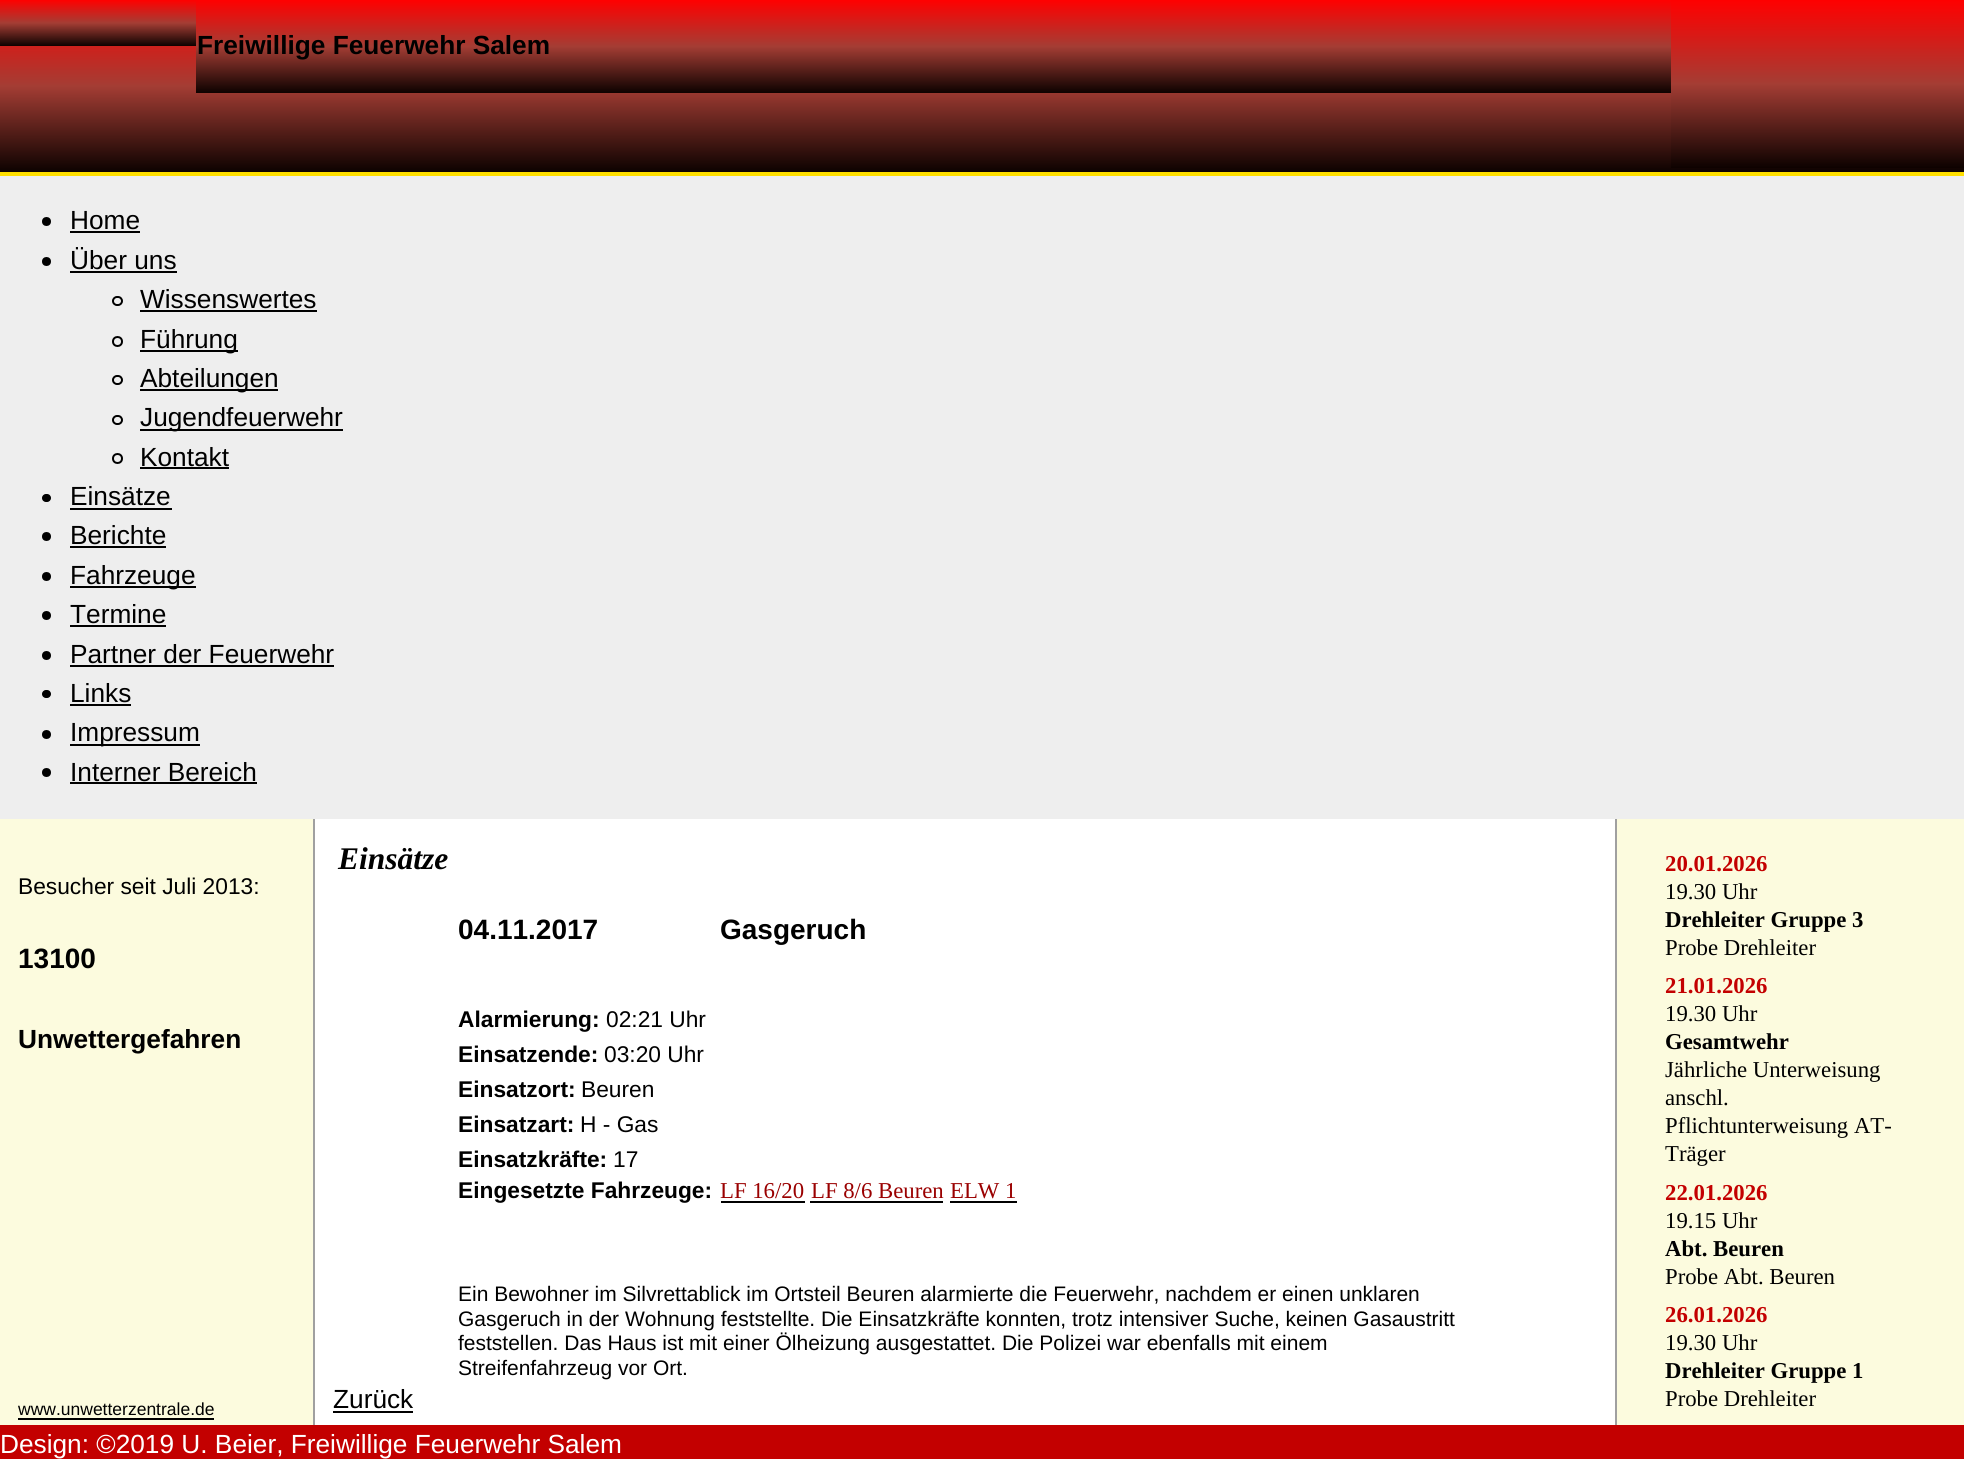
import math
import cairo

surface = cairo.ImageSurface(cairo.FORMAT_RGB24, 1964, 1459)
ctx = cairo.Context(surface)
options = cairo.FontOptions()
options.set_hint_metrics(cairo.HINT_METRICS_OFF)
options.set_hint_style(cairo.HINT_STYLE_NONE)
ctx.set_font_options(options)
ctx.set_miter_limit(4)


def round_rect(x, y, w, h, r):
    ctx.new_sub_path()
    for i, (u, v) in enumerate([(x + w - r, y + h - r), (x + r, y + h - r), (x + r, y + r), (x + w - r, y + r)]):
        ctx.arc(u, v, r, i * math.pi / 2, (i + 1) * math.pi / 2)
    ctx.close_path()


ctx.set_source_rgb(0.933, 0.933, 0.933)
ctx.paint()
gradient = cairo.LinearGradient(983, 0, 983, 172)
gradient.add_color_stop_rgba(0, 1, 0, 0, 1)
gradient.add_color_stop_rgba(0.5, 0.643, 0.239, 0.204, 1)
gradient.add_color_stop_rgba(1, 0.051, 0.008, 0, 1)
ctx.set_source(gradient)
ctx.rectangle(0, 46, 1964, 126)
ctx.fill()
ctx.set_source_rgb(1, 0.875, 0)
ctx.rectangle(0, 172, 1964, 4)
ctx.fill()
gradient = cairo.LinearGradient(98, 0, 98, 46)
gradient.add_color_stop_rgba(0, 1, 0, 0, 1)
gradient.add_color_stop_rgba(0.5, 0.643, 0.239, 0.204, 1)
gradient.add_color_stop_rgba(1, 0.051, 0.008, 0, 1)
ctx.set_source(gradient)
ctx.rectangle(0, 0, 196, 46)
ctx.fill()
gradient = cairo.LinearGradient(934, 0, 934, 93)
gradient.add_color_stop_rgba(0, 1, 0, 0, 1)
gradient.add_color_stop_rgba(0.5, 0.643, 0.239, 0.204, 1)
gradient.add_color_stop_rgba(1, 0.051, 0.008, 0, 1)
ctx.set_source(gradient)
ctx.rectangle(196, 0, 1475, 93)
ctx.fill()
ctx.select_font_face("Liberation Sans", cairo.FONT_SLANT_NORMAL, cairo.FONT_WEIGHT_BOLD)
ctx.set_font_size(26.25)
ctx.set_source_rgb(0, 0, 0)
ctx.move_to(197, 54)
ctx.show_text("Freiwillige Feuerwehr Salem")
gradient = cairo.LinearGradient(1818, 0, 1818, 168)
gradient.add_color_stop_rgba(0, 1, 0, 0, 1)
gradient.add_color_stop_rgba(0.5, 0.643, 0.239, 0.204, 1)
gradient.add_color_stop_rgba(1, 0.051, 0.008, 0, 1)
ctx.set_source(gradient)
ctx.rectangle(1671, 0, 293, 168)
ctx.fill()
ctx.set_source_rgb(0, 0, 0)
ctx.arc(46.5, 221.5, 4.5, 0, 2 * math.pi)
ctx.fill()
ctx.select_font_face("Liberation Sans")
ctx.move_to(70, 229)
ctx.show_text("Home")
ctx.rectangle(70, 231, 70, 2)
ctx.fill()
ctx.arc(46.5, 261.5, 4.5, 0, 2 * math.pi)
ctx.fill()
ctx.move_to(70, 269)
ctx.show_text("Über uns")
ctx.rectangle(70, 271, 107, 2)
ctx.fill()
round_rect(113, 297, 9, 8, 4)
ctx.stroke()
ctx.move_to(140, 308)
ctx.show_text("Wissenswertes")
ctx.rectangle(140, 310, 177, 2)
ctx.fill()
ctx.arc(117.5, 341.5, 4.5, 0, 2 * math.pi)
ctx.stroke()
ctx.rectangle(140, 350, 98, 2)
ctx.fill()
ctx.move_to(140, 348)
ctx.show_text("Führung")
round_rect(113, 376, 9, 8, 4)
ctx.stroke()
ctx.rectangle(140, 389, 138, 2)
ctx.fill()
ctx.move_to(140, 387)
ctx.show_text("Abteilungen")
round_rect(113, 416, 9, 8, 4)
ctx.stroke()
ctx.rectangle(140, 429, 203, 2)
ctx.fill()
ctx.move_to(140, 426)
ctx.show_text("Jugendfeuerwehr")
ctx.new_path()
ctx.arc(117.5, 458.5, 4.5, 0, 2 * math.pi)
ctx.stroke()
ctx.move_to(140, 466)
ctx.show_text("Kontakt")
ctx.rectangle(140, 467, 89, 2)
ctx.fill()
round_rect(42, 494, 9, 8, 4)
ctx.fill()
ctx.move_to(70, 505)
ctx.show_text("Einsätze")
ctx.rectangle(70, 508, 102, 2)
ctx.fill()
ctx.arc(46.5, 536.5, 4.5, 0, 2 * math.pi)
ctx.fill()
ctx.move_to(70, 544)
ctx.show_text("Berichte")
ctx.rectangle(70, 546, 96, 2)
ctx.fill()
ctx.arc(46.5, 576.5, 4.5, 0, 2 * math.pi)
ctx.fill()
ctx.rectangle(70, 586, 126, 2)
ctx.fill()
ctx.move_to(70, 584)
ctx.show_text("Fahrzeuge")
ctx.new_path()
ctx.arc(46.5, 615.5, 4.5, 0, 2 * math.pi)
ctx.fill()
ctx.move_to(70, 623)
ctx.show_text("Termine")
ctx.rectangle(70, 625, 96, 2)
ctx.fill()
ctx.arc(46.5, 655.5, 4.5, 0, 2 * math.pi)
ctx.fill()
ctx.move_to(70, 663)
ctx.show_text("Partner der Feuerwehr")
ctx.rectangle(70, 665, 264, 2)
ctx.fill()
round_rect(42, 690, 9, 8, 4)
ctx.fill()
ctx.move_to(70, 702)
ctx.show_text("Links")
ctx.rectangle(70, 704, 61, 2)
ctx.fill()
ctx.arc(46.5, 734.5, 4.5, 0, 2 * math.pi)
ctx.fill()
ctx.rectangle(70, 744, 130, 2)
ctx.fill()
ctx.move_to(70, 741)
ctx.show_text("Impressum")
ctx.new_path()
ctx.arc(46.5, 772.5, 4.5, 0, 2 * math.pi)
ctx.fill()
ctx.move_to(70, 781)
ctx.show_text("Interner Bereich")
ctx.rectangle(70, 782, 187, 2)
ctx.fill()
ctx.set_source_rgb(1, 1, 1)
ctx.rectangle(315, 819, 1300, 606)
ctx.fill()
ctx.set_source_rgb(0.988, 0.984, 0.871)
ctx.rectangle(0, 819, 313, 606)
ctx.fill()
ctx.set_source_rgb(0.627, 0.627, 0.627)
ctx.rectangle(313, 819, 2, 606)
ctx.fill()
ctx.set_font_size(22.75)
ctx.set_source_rgb(0, 0, 0)
ctx.move_to(18, 894)
ctx.show_text("Besucher seit Juli 2013:")
ctx.select_font_face("Liberation Sans", cairo.FONT_SLANT_NORMAL, cairo.FONT_WEIGHT_BOLD)
ctx.set_font_size(28)
ctx.move_to(18, 968)
ctx.show_text("13100")
ctx.set_font_size(26.25)
ctx.move_to(18, 1048)
ctx.show_text("Unwettergefahren")
ctx.select_font_face("Liberation Sans")
ctx.set_font_size(17.5)
ctx.move_to(18, 1415)
ctx.show_text("www.unwetterzentrale.de")
ctx.rectangle(18, 1418, 196, 2)
ctx.fill()
ctx.select_font_face("Liberation Serif", cairo.FONT_SLANT_ITALIC, cairo.FONT_WEIGHT_BOLD)
ctx.set_font_size(31.5)
ctx.move_to(338, 869)
ctx.show_text("Einsätze")
ctx.select_font_face("Liberation Sans", cairo.FONT_SLANT_NORMAL, cairo.FONT_WEIGHT_BOLD)
ctx.set_font_size(28)
ctx.move_to(458, 939)
ctx.show_text("04.11.2017")
ctx.move_to(720, 939)
ctx.show_text("Gasgeruch")
ctx.set_font_size(22.75)
ctx.move_to(458, 1027)
ctx.show_text("Alarmierung:")
ctx.select_font_face("Liberation Sans")
ctx.move_to(606, 1027)
ctx.show_text("02:21 Uhr")
ctx.select_font_face("Liberation Sans", cairo.FONT_SLANT_NORMAL, cairo.FONT_WEIGHT_BOLD)
ctx.move_to(458, 1062)
ctx.show_text("Einsatzende:")
ctx.select_font_face("Liberation Sans")
ctx.move_to(604, 1062)
ctx.show_text("03:20 Uhr")
ctx.select_font_face("Liberation Sans", cairo.FONT_SLANT_NORMAL, cairo.FONT_WEIGHT_BOLD)
ctx.move_to(458, 1097)
ctx.show_text("Einsatzort:")
ctx.select_font_face("Liberation Sans")
ctx.move_to(581, 1097)
ctx.show_text("Beuren")
ctx.select_font_face("Liberation Sans", cairo.FONT_SLANT_NORMAL, cairo.FONT_WEIGHT_BOLD)
ctx.move_to(458, 1132)
ctx.show_text("Einsatzart:")
ctx.select_font_face("Liberation Sans")
ctx.move_to(580, 1132)
ctx.show_text("H - Gas")
ctx.select_font_face("Liberation Sans", cairo.FONT_SLANT_NORMAL, cairo.FONT_WEIGHT_BOLD)
ctx.move_to(458, 1167)
ctx.show_text("Einsatzkräfte:")
ctx.select_font_face("Liberation Sans")
ctx.move_to(613, 1167)
ctx.show_text("17")
ctx.select_font_face("Liberation Sans", cairo.FONT_SLANT_NORMAL, cairo.FONT_WEIGHT_BOLD)
ctx.move_to(458, 1198)
ctx.show_text("Eingesetzte Fahrzeuge:")
ctx.select_font_face("Liberation Serif")
ctx.set_source_rgb(0.604, 0, 0)
ctx.move_to(720, 1198)
ctx.show_text("LF 16/20")
ctx.set_source_rgb(0, 0, 0)
ctx.rectangle(721, 1201, 84, 2)
ctx.fill()
ctx.set_source_rgb(0.604, 0, 0)
ctx.move_to(811, 1198)
ctx.show_text("LF 8/6 Beuren")
ctx.set_source_rgb(0, 0, 0)
ctx.rectangle(810, 1201, 133, 2)
ctx.fill()
ctx.set_source_rgb(0.604, 0, 0)
ctx.move_to(950, 1198)
ctx.show_text("ELW 1")
ctx.set_source_rgb(0, 0, 0)
ctx.rectangle(950, 1201, 67, 2)
ctx.fill()
ctx.select_font_face("Liberation Sans")
ctx.set_font_size(21)
ctx.move_to(458, 1301)
ctx.show_text("Ein Bewohner im Silvrettablick im Ortsteil Beuren alarmierte die Feuerwehr, nachdem er einen unklaren")
ctx.move_to(458, 1326)
ctx.show_text("Gasgeruch in der Wohnung feststellte. Die Einsatzkräfte konnten, trotz intensiver Suche, keinen Gasaustritt")
ctx.move_to(458, 1350)
ctx.show_text("feststellen. Das Haus ist mit einer Ölheizung ausgestattet. Die Polizei war ebenfalls mit einem")
ctx.move_to(458, 1375)
ctx.show_text("Streifenfahrzeug vor Ort.")
ctx.set_font_size(26.25)
ctx.move_to(333, 1408)
ctx.show_text("Zurück")
ctx.rectangle(333, 1411, 80, 2)
ctx.fill()
ctx.set_source_rgb(0.988, 0.984, 0.871)
ctx.rectangle(1617, 819, 347, 606)
ctx.fill()
ctx.set_source_rgb(0.627, 0.627, 0.627)
ctx.rectangle(1615, 819, 2, 606)
ctx.fill()
ctx.select_font_face("Liberation Serif", cairo.FONT_SLANT_NORMAL, cairo.FONT_WEIGHT_BOLD)
ctx.set_font_size(22.75)
ctx.set_source_rgb(0.765, 0, 0)
ctx.move_to(1665, 871)
ctx.show_text("20.01.2026")
ctx.select_font_face("Liberation Serif")
ctx.set_source_rgb(0, 0, 0)
ctx.move_to(1665, 899)
ctx.show_text("19.30 Uhr")
ctx.select_font_face("Liberation Serif", cairo.FONT_SLANT_NORMAL, cairo.FONT_WEIGHT_BOLD)
ctx.move_to(1665, 927)
ctx.show_text("Drehleiter Gruppe 3")
ctx.select_font_face("Liberation Serif")
ctx.move_to(1665, 955)
ctx.show_text("Probe Drehleiter")
ctx.select_font_face("Liberation Serif", cairo.FONT_SLANT_NORMAL, cairo.FONT_WEIGHT_BOLD)
ctx.set_source_rgb(0.765, 0, 0)
ctx.move_to(1665, 993)
ctx.show_text("21.01.2026")
ctx.select_font_face("Liberation Serif")
ctx.set_source_rgb(0, 0, 0)
ctx.move_to(1665, 1021)
ctx.show_text("19.30 Uhr")
ctx.select_font_face("Liberation Serif", cairo.FONT_SLANT_NORMAL, cairo.FONT_WEIGHT_BOLD)
ctx.move_to(1665, 1049)
ctx.show_text("Gesamtwehr")
ctx.select_font_face("Liberation Serif")
ctx.move_to(1665, 1077)
ctx.show_text("Jährliche Unterweisung")
ctx.move_to(1665, 1105)
ctx.show_text("anschl.")
ctx.move_to(1665, 1133)
ctx.show_text("Pflichtunterweisung AT-")
ctx.move_to(1665, 1161)
ctx.show_text("Träger")
ctx.select_font_face("Liberation Serif", cairo.FONT_SLANT_NORMAL, cairo.FONT_WEIGHT_BOLD)
ctx.set_source_rgb(0.765, 0, 0)
ctx.move_to(1665, 1200)
ctx.show_text("22.01.2026")
ctx.select_font_face("Liberation Serif")
ctx.set_source_rgb(0, 0, 0)
ctx.move_to(1665, 1228)
ctx.show_text("19.15 Uhr")
ctx.select_font_face("Liberation Serif", cairo.FONT_SLANT_NORMAL, cairo.FONT_WEIGHT_BOLD)
ctx.move_to(1665, 1256)
ctx.show_text("Abt. Beuren")
ctx.select_font_face("Liberation Serif")
ctx.move_to(1665, 1284)
ctx.show_text("Probe Abt. Beuren")
ctx.select_font_face("Liberation Serif", cairo.FONT_SLANT_NORMAL, cairo.FONT_WEIGHT_BOLD)
ctx.set_source_rgb(0.765, 0, 0)
ctx.move_to(1665, 1322)
ctx.show_text("26.01.2026")
ctx.select_font_face("Liberation Serif")
ctx.set_source_rgb(0, 0, 0)
ctx.move_to(1665, 1350)
ctx.show_text("19.30 Uhr")
ctx.select_font_face("Liberation Serif", cairo.FONT_SLANT_NORMAL, cairo.FONT_WEIGHT_BOLD)
ctx.move_to(1665, 1378)
ctx.show_text("Drehleiter Gruppe 1")
ctx.select_font_face("Liberation Serif")
ctx.move_to(1665, 1406)
ctx.show_text("Probe Drehleiter")
ctx.set_source_rgb(0.765, 0, 0)
ctx.rectangle(0, 1425, 1964, 34)
ctx.fill()
ctx.select_font_face("Liberation Sans")
ctx.set_font_size(26.25)
ctx.set_source_rgb(1, 1, 1)
ctx.move_to(0, 1453)
ctx.show_text("Design: ©2019 U. Beier, Freiwillige Feuerwehr Salem")
surface.write_to_png("page.png")
